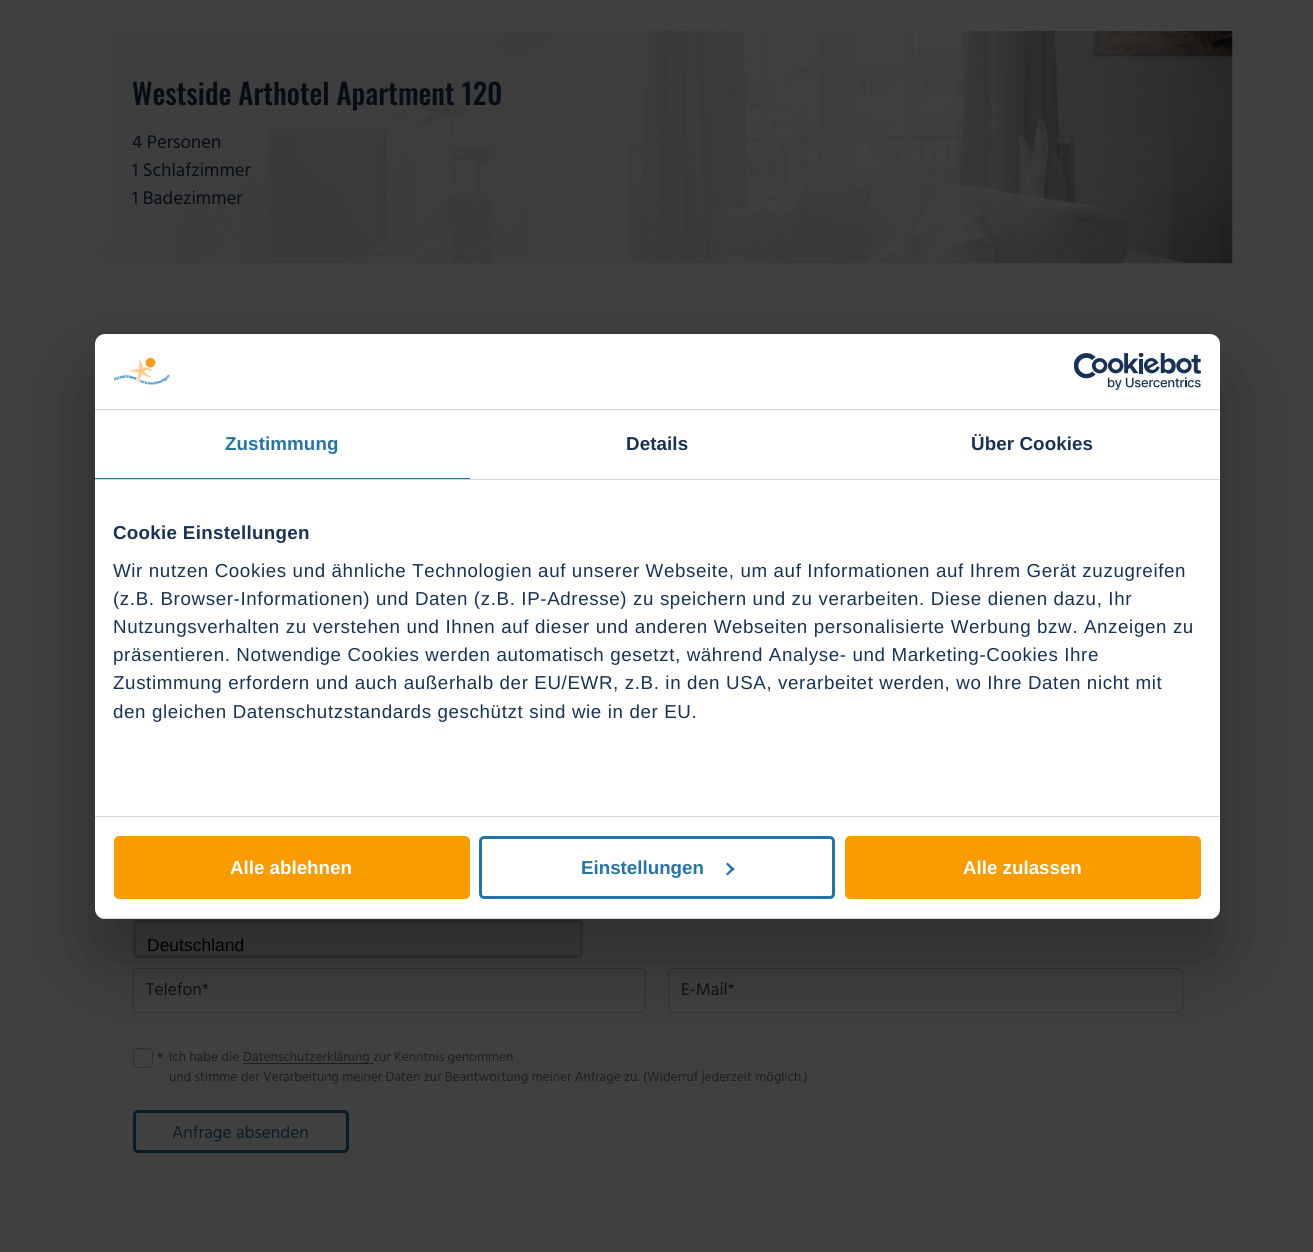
import math
import cairo

surface = cairo.ImageSurface(cairo.FORMAT_RGB24, 1313, 1252)
ctx = cairo.Context(surface)
options = cairo.FontOptions()
options.set_hint_metrics(cairo.HINT_METRICS_OFF)
options.set_hint_style(cairo.HINT_STYLE_NONE)
ctx.set_font_options(options)
ctx.set_miter_limit(4)


def spaced_text(x, y, s, letter, word):
    ctx.move_to(x, y)
    for ch in s:
        ctx.show_text(ch)
        ctx.rel_move_to(letter + word * (ch == ' '), 0)


def round_rect(x, y, w, h, r):
    ctx.new_sub_path()
    for i, (u, v) in enumerate([(x + w - r, y + h - r), (x + r, y + h - r), (x + r, y + r), (x + w - r, y + r)]):
        ctx.arc(u, v, r, i * math.pi / 2, (i + 1) * math.pi / 2)
    ctx.close_path()


def shadow(x, y, w, h, r, blur, alpha):
    ctx.push_group_with_content(cairo.CONTENT_ALPHA)
    ctx.set_operator(cairo.OPERATOR_SOURCE)
    for i in range(15, -16, -2):
        e = blur * i / 6
        if min(w, h) + 2 * e > 0:
            ctx.set_source_rgba(0, 0, 0, alpha * math.erfc((i - 1) / 8.5) / 2)
            round_rect(x - e, y - e, w + 2 * e, h + 2 * e, max(0, min(r + e + blur * .6, min(w, h) / 2 + e)))
            ctx.fill()
    ctx.mask(ctx.pop_group())


def picture(path, x, y, w, h):
    ctx.save()
    ctx.set_source_surface(cairo.ImageSurface.create_from_png(path), x, y)
    ctx.rectangle(x, y, w, h)
    ctx.fill()
    ctx.restore()


ctx.set_source_rgb(0.251, 0.251, 0.251)
ctx.paint()
ctx.set_source_rgb(0.227, 0.235, 0.247)
ctx.rectangle(58, 1238, 1200, 1)
ctx.fill()
picture("img1.png", 82, 31, 1151, 233)
gradient = cairo.LinearGradient(83, 148, 1233, 147)
gradient.add_color_stop_rgba(0, 0.251, 0.251, 0.251, 0.9)
gradient.add_color_stop_rgba(0.75, 0.251, 0.251, 0.251, 0.85)
gradient.add_color_stop_rgba(1, 0.251, 0.251, 0.251, 0)
ctx.set_source(gradient)
ctx.rectangle(83, 31, 1137, 233)
ctx.fill()
ctx.select_font_face("Oswald Medium")
ctx.set_font_size(28.75)
ctx.set_source_rgb(0.024, 0.051, 0.086)
ctx.move_to(132, 105)
ctx.show_text("Westside Arthotel Apartment 120")
ctx.select_font_face("Hind Madurai")
ctx.set_font_size(18.75)
ctx.move_to(132, 148)
ctx.show_text("4 Personen")
ctx.move_to(132, 176)
ctx.show_text("1 Schlafzimmer")
ctx.move_to(132, 204)
ctx.show_text("1 Badezimmer")
ctx.set_source_rgb(0.235, 0.235, 0.235)
round_rect(134.5, 921.5, 447, 35, 2.5)
ctx.fill_preserve()
ctx.set_source_rgb(0.2, 0.2, 0.2)
ctx.set_line_width(3)
ctx.stroke()
ctx.select_font_face("Liberation Sans")
ctx.set_font_size(17.5)
ctx.set_source_rgb(0, 0, 0)
ctx.move_to(147, 951)
ctx.show_text("Deutschland")
round_rect(133.5, 968.5, 512, 44, 4.5)
ctx.set_source_rgb(0.2, 0.2, 0.2)
ctx.set_line_width(1)
ctx.stroke()
ctx.select_font_face("Hind Madurai")
ctx.set_source_rgb(0.071, 0.063, 0.059)
ctx.move_to(146, 995)
ctx.show_text("Telefon*")
round_rect(668.5, 968.5, 514, 44, 4.5)
ctx.set_source_rgb(0.2, 0.2, 0.2)
ctx.stroke()
ctx.set_source_rgb(0.071, 0.063, 0.059)
ctx.move_to(681, 995)
ctx.show_text("E-Mail*")
round_rect(133.5, 1048.5, 19, 19, 3.5)
ctx.set_source_rgb(0.184, 0.184, 0.188)
ctx.stroke()
ctx.set_font_size(15)
ctx.set_source_rgb(0.22, 0, 0.055)
ctx.move_to(157, 1063)
ctx.show_text("*")
ctx.set_font_size(13.5)
ctx.set_source_rgb(0.118, 0.118, 0.118)
ctx.move_to(169, 1061)
ctx.show_text("Ich habe die")
ctx.rectangle(243, 1063, 130, 1)
ctx.fill()
ctx.move_to(243, 1061)
ctx.show_text("Datenschutzerklärung zur Kenntnis genommen")
ctx.move_to(169, 1081)
ctx.show_text("und stimme der Verarbeitung meiner Daten zur Beantwortung meiner Anfrage zu. (Widerruf jederzeit möglich.)")
round_rect(134.5, 1111.5, 213, 40, 3.5)
ctx.set_source_rgb(0.035, 0.114, 0.165)
ctx.set_line_width(3)
ctx.stroke()
ctx.set_font_size(17.5)
ctx.move_to(172, 1138)
ctx.show_text("Anfrage absenden")
ctx.set_source_rgb(0, 0, 0)
shadow(95, 374, 1125, 585, 10, 42.5, 0.3)
ctx.set_source_rgb(1, 1, 1)
round_rect(95, 334, 1125, 585, 10)
ctx.fill()
ctx.set_source_rgb(0.839, 0.839, 0.839)
ctx.rectangle(95, 409, 1125, 1)
ctx.fill()
picture("img2.png", 113, 357, 58, 28)
picture("img3.png", 1074, 353, 127, 37)
ctx.rectangle(95, 479, 1125, 1)
ctx.fill()
ctx.set_source_rgb(0.141, 0.455, 0.651)
ctx.rectangle(95, 478, 375, 1)
ctx.fill()
ctx.select_font_face("Liberation Sans", cairo.FONT_SLANT_NORMAL, cairo.FONT_WEIGHT_BOLD)
ctx.set_font_size(18.75)
spaced_text(225, 450, "Zustimmung", 0.1, 0)
ctx.set_source_rgb(0.094, 0.196, 0.337)
spaced_text(626, 450, "Details", 0.1, 0)
spaced_text(971, 450, "Über Cookies", 0.1, 0)
ctx.set_source_rgb(0.839, 0.839, 0.839)
ctx.rectangle(95, 816, 1125, 1)
ctx.fill()
ctx.set_source_rgb(0.094, 0.196, 0.337)
spaced_text(113, 539, "Cookie Einstellungen", 0.3, 0)
ctx.select_font_face("Liberation Sans")
spaced_text(113, 577, "Wir nutzen Cookies und ähnliche Technologien auf unserer Webseite, um auf Informationen auf Ihrem Gerät zuzugreifen", 0.62, 0)
spaced_text(113, 605, "(z.B. Browser-Informationen) und Daten (z.B. IP-Adresse) zu speichern und zu verarbeiten. Diese dienen dazu, Ihr", 0.62, 0)
spaced_text(113, 633, "Nutzungsverhalten zu verstehen und Ihnen auf dieser und anderen Webseiten personalisierte Werbung bzw. Anzeigen zu", 0.62, 0)
spaced_text(113, 661, "präsentieren. Notwendige Cookies werden automatisch gesetzt, während Analyse- und Marketing-Cookies Ihre", 0.62, 0)
spaced_text(113, 689, "Zustimmung erfordern und auch außerhalb der EU/EWR, z.B. in den USA, verarbeitet werden, wo Ihre Daten nicht mit", 0.62, 0)
spaced_text(113, 718, "den gleichen Datenschutzstandards geschützt sind wie in der EU.", 0.62, 0)
ctx.save()
round_rect(95, 334, 1125, 585, 10)
ctx.clip()
ctx.set_source_rgb(0.839, 0.839, 0.839)
ctx.rectangle(95, 918, 1125, 1)
ctx.fill()
ctx.restore()
ctx.set_source_rgb(0.969, 0.612, 0)
round_rect(115.5, 837.5, 353, 60, 3.5)
ctx.fill_preserve()
ctx.stroke()
ctx.select_font_face("Liberation Sans", cairo.FONT_SLANT_NORMAL, cairo.FONT_WEIGHT_BOLD)
ctx.set_source_rgb(1, 1, 1)
ctx.move_to(230, 874)
ctx.show_text("Alle ablehnen")
round_rect(480.5, 837.5, 353, 60, 3.5)
ctx.set_source_rgb(0.141, 0.455, 0.651)
ctx.stroke()
ctx.move_to(581, 874)
ctx.show_text("Einstellungen")
ctx.new_path()
ctx.move_to(727.5, 862.5)
ctx.line_to(734.5, 869)
ctx.line_to(732.5, 871)
ctx.line_to(726, 864)
ctx.close_path()
ctx.fill()
ctx.new_path()
ctx.move_to(732.5, 867.5)
ctx.line_to(734.5, 869)
ctx.line_to(727.5, 875.5)
ctx.line_to(726, 874)
ctx.close_path()
ctx.fill()
ctx.set_source_rgb(0.969, 0.612, 0)
round_rect(846.5, 837.5, 353, 60, 3.5)
ctx.fill_preserve()
ctx.stroke()
ctx.set_source_rgb(1, 1, 1)
ctx.move_to(963, 874)
ctx.show_text("Alle zulassen")
surface.write_to_png("page.png")
